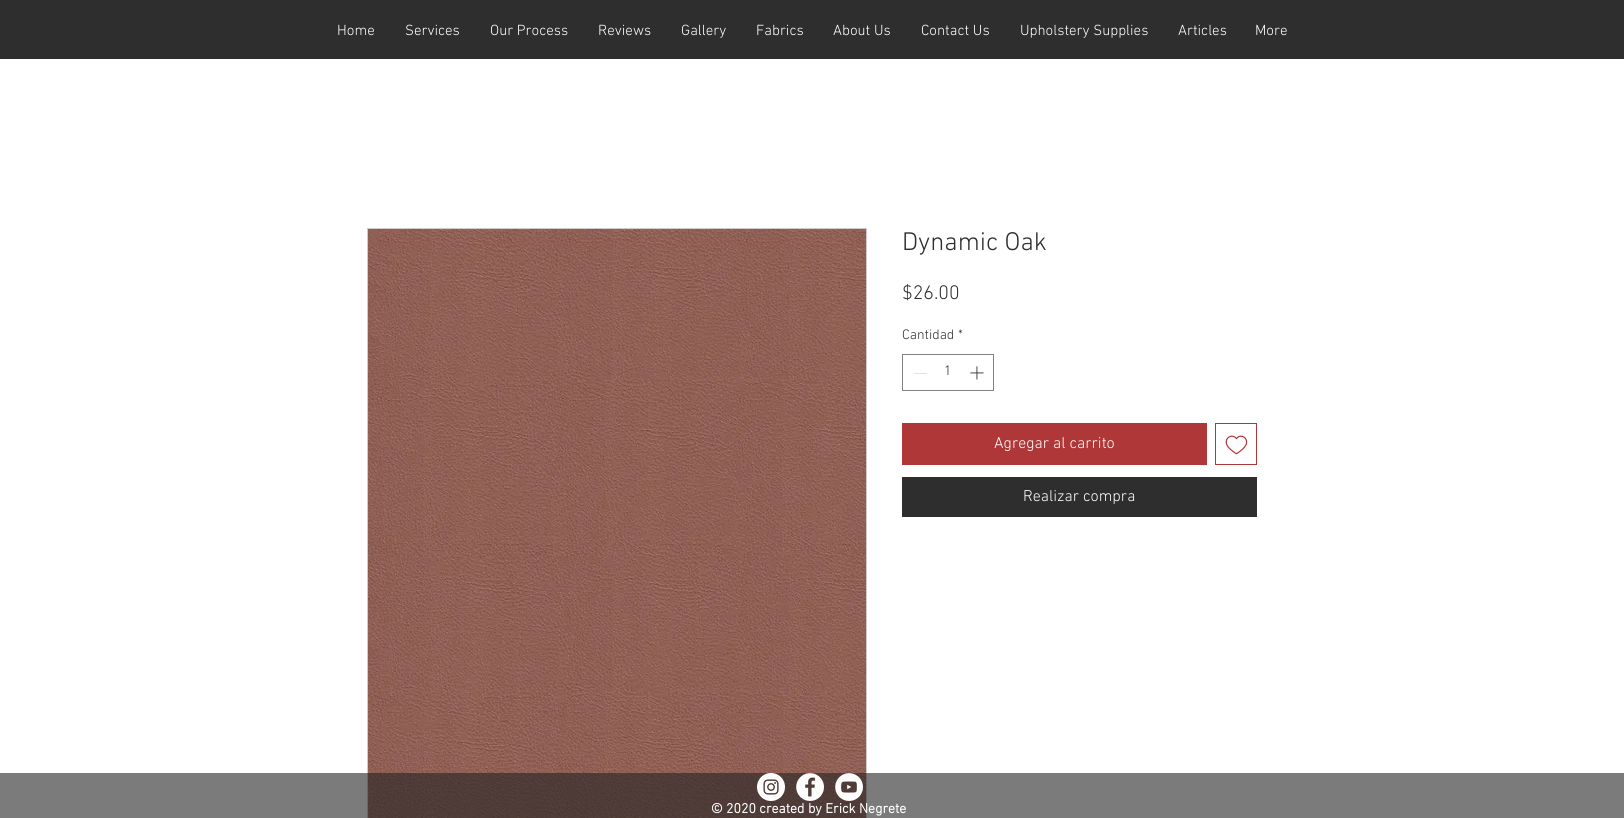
import math
import cairo

surface = cairo.ImageSurface(cairo.FORMAT_RGB24, 1624, 818)
ctx = cairo.Context(surface)
options = cairo.FontOptions()
options.set_hint_metrics(cairo.HINT_METRICS_OFF)
options.set_hint_style(cairo.HINT_STYLE_NONE)
ctx.set_font_options(options)
ctx.set_miter_limit(4)


def picture(path, x, y, w, h):
    ctx.save()
    ctx.set_source_surface(cairo.ImageSurface.create_from_png(path), x, y)
    ctx.rectangle(x, y, w, h)
    ctx.fill()
    ctx.restore()


ctx.set_source_rgb(1, 1, 1)
ctx.paint()
ctx.set_source_rgb(0.184, 0.18, 0.18)
ctx.rectangle(0, 0, 1624, 59)
ctx.fill()
ctx.select_font_face("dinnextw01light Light")
ctx.set_font_size(15)
ctx.set_source_rgb(1, 1, 1)
ctx.move_to(337, 35)
ctx.show_text("Home")
ctx.move_to(405, 35)
ctx.show_text("Services")
ctx.move_to(490, 35)
ctx.show_text("Our Process")
ctx.move_to(598, 35)
ctx.show_text("Reviews")
ctx.move_to(681, 35)
ctx.show_text("Gallery")
ctx.move_to(756, 35)
ctx.show_text("Fabrics")
ctx.move_to(833, 35)
ctx.show_text("About Us")
ctx.move_to(921, 35)
ctx.show_text("Contact Us")
ctx.move_to(1020, 35)
ctx.show_text("Upholstery Supplies")
ctx.move_to(1178, 35)
ctx.show_text("Articles")
ctx.move_to(1255, 35)
ctx.show_text("More")
ctx.rectangle(367.5, 228.5, 499, 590)
ctx.set_source_rgb(0.82, 0.792, 0.788)
ctx.set_line_width(1)
ctx.stroke()
picture("img1.png", 368, 229, 498, 589)
ctx.set_font_size(26)
ctx.set_source_rgb(0.184, 0.18, 0.18)
ctx.move_to(902, 250)
ctx.show_text("Dynamic Oak")
ctx.set_font_size(20)
ctx.move_to(902, 299)
ctx.show_text("$26.00")
ctx.set_font_size(14)
ctx.move_to(902, 339)
ctx.show_text("Cantidad")
ctx.move_to(958, 339)
ctx.show_text("*")
ctx.rectangle(902.5, 354.5, 91, 36)
ctx.set_source_rgb(0.51, 0.51, 0.51)
ctx.stroke()
ctx.set_source_rgb(0.89, 0.89, 0.89)
ctx.rectangle(914, 373, 13, 1)
ctx.fill()
ctx.set_source_rgb(0.184, 0.18, 0.18)
ctx.move_to(944, 375)
ctx.show_text("1")
picture("img2.png", 970, 366, 14, 14)
ctx.set_source_rgb(0.69, 0.216, 0.216)
ctx.rectangle(902, 423, 305, 42)
ctx.fill()
ctx.set_font_size(16)
ctx.set_source_rgb(1, 1, 1)
ctx.move_to(994, 448)
ctx.show_text("Agregar al carrito")
ctx.rectangle(1215.5, 423.5, 41, 41)
ctx.set_source_rgb(0.69, 0.216, 0.216)
ctx.stroke()
picture("img3.png", 1225, 435, 23, 20)
ctx.set_source_rgb(0.184, 0.18, 0.18)
ctx.rectangle(902, 477, 355, 40)
ctx.fill()
ctx.set_source_rgb(1, 1, 1)
ctx.move_to(1023, 501)
ctx.show_text("Realizar compra")
ctx.set_source_rgba(0.137, 0.137, 0.137, 0.6)
ctx.rectangle(0, 773, 1624, 45)
ctx.fill()
picture("img4.png", 757, 773, 28, 28)
picture("img5.png", 796, 773, 28, 28)
picture("img6.png", 835, 773, 28, 28)
ctx.select_font_face("dinnextw01light", cairo.FONT_SLANT_NORMAL, cairo.FONT_WEIGHT_BOLD)
ctx.set_font_size(14)
ctx.set_source_rgb(1, 1, 1)
ctx.move_to(711, 813)
ctx.show_text("© 2020 created by Erick Negrete")
surface.write_to_png("page.png")
